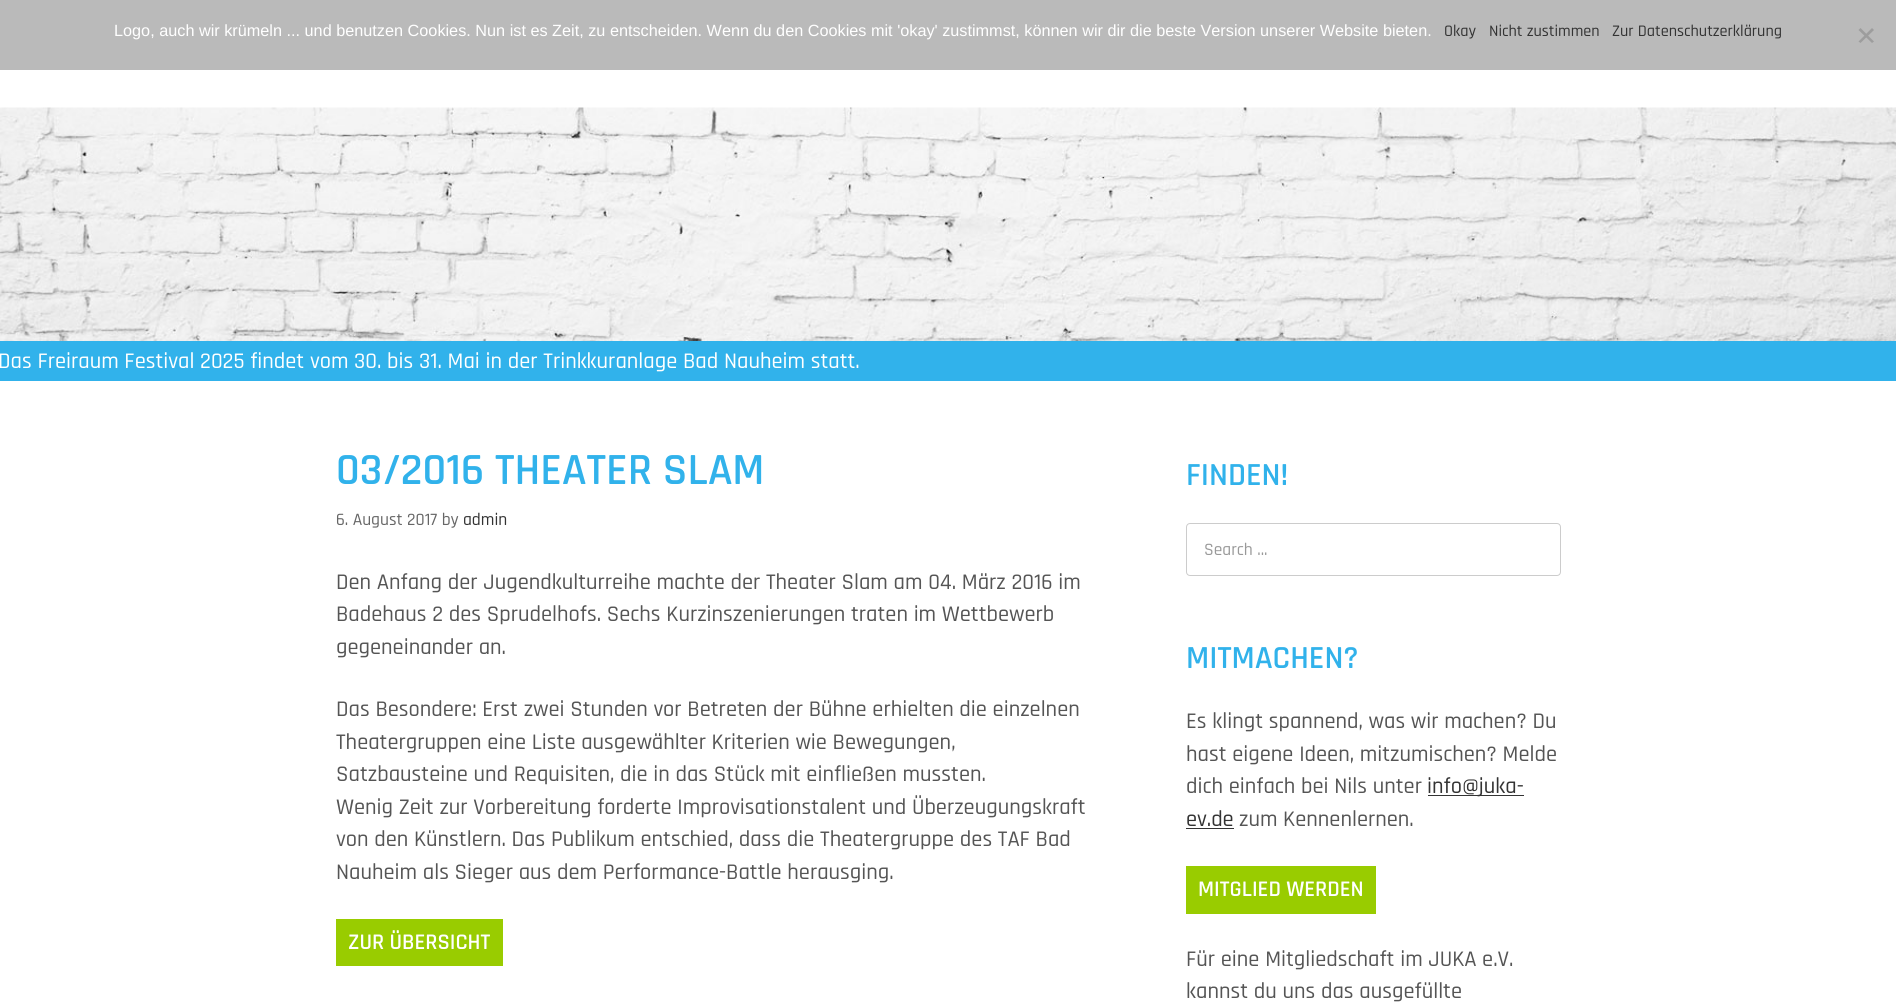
import math
import cairo

surface = cairo.ImageSurface(cairo.FORMAT_RGB24, 1896, 1006)
ctx = cairo.Context(surface)
options = cairo.FontOptions()
options.set_hint_metrics(cairo.HINT_METRICS_OFF)
options.set_hint_style(cairo.HINT_STYLE_NONE)
ctx.set_font_options(options)
ctx.set_miter_limit(4)


def round_rect(x, y, w, h, r):
    ctx.new_sub_path()
    for i, (u, v) in enumerate([(x + w - r, y + h - r), (x + r, y + h - r), (x + r, y + r), (x + w - r, y + r)]):
        ctx.arc(u, v, r, i * math.pi / 2, (i + 1) * math.pi / 2)
    ctx.close_path()


def picture(path, x, y, w, h):
    ctx.save()
    ctx.set_source_surface(cairo.ImageSurface.create_from_png(path), x, y)
    ctx.rectangle(x, y, w, h)
    ctx.fill()
    ctx.restore()


ctx.set_source_rgb(1, 1, 1)
ctx.paint()
ctx.set_source_rgb(0.729, 0.729, 0.729)
ctx.rectangle(0, 0, 1896, 70)
ctx.fill()
ctx.select_font_face("Liberation Sans")
ctx.set_font_size(16.25)
ctx.set_source_rgb(1, 1, 1)
ctx.move_to(114, 36)
ctx.show_text("Logo, auch wir krümeln ... und benutzen Cookies. Nun ist es Zeit, zu entscheiden. Wenn du den Cookies mit 'okay' zustimmst, können wir dir die beste Version unserer Website bieten.")
ctx.select_font_face("Rajdhani Medium")
ctx.set_source_rgb(0.2, 0.2, 0.2)
ctx.move_to(1444, 36)
ctx.show_text("Okay")
ctx.move_to(1489, 36)
ctx.show_text("Nicht zustimmen")
ctx.move_to(1612, 36)
ctx.show_text("Zur Datenschutzerklärung")
ctx.set_source_rgb(0.616, 0.616, 0.616)
ctx.new_path()
ctx.move_to(1872, 28)
ctx.line_to(1874, 30)
ctx.line_to(1860.5, 43)
ctx.line_to(1858.5, 41.5)
ctx.close_path()
ctx.fill()
ctx.new_path()
ctx.move_to(1858.5, 30)
ctx.line_to(1860.5, 28)
ctx.line_to(1874, 41.5)
ctx.line_to(1872, 43)
ctx.close_path()
ctx.fill()
picture("img1.png", 0, 107, 1896, 234)
ctx.set_source_rgb(0.192, 0.698, 0.918)
ctx.rectangle(0, 341, 1896, 40)
ctx.fill()
ctx.set_font_size(22.5)
ctx.set_source_rgb(1, 1, 1)
ctx.move_to(-2, 368)
ctx.show_text("Das Freiraum Festival 2025 findet vom 30. bis 31. Mai in der Trinkkuranlage Bad Nauheim statt.")
ctx.select_font_face("Rajdhani SemiBold")
ctx.set_font_size(45)
ctx.set_source_rgb(0.192, 0.698, 0.918)
ctx.move_to(336, 484)
ctx.show_text("03/2016 THEATER SLAM")
ctx.select_font_face("Rajdhani Medium")
ctx.set_font_size(17.5)
ctx.set_source_rgb(0.4, 0.4, 0.4)
ctx.move_to(336, 525)
ctx.show_text("6. August 2017 by")
ctx.set_source_rgb(0.2, 0.2, 0.2)
ctx.move_to(463, 525)
ctx.show_text("admin")
ctx.set_font_size(22.5)
ctx.set_source_rgb(0.333, 0.333, 0.333)
ctx.move_to(336, 589)
ctx.show_text("Den Anfang der Jugendkulturreihe machte der Theater Slam am 04. März 2016 im")
ctx.move_to(336, 621)
ctx.show_text("Badehaus 2 des Sprudelhofs. Sechs Kurzinszenierungen traten im Wettbewerb")
ctx.move_to(336, 654)
ctx.show_text("gegeneinander an.")
ctx.move_to(336, 716)
ctx.show_text("Das Besondere: Erst zwei Stunden vor Betreten der Bühne erhielten die einzelnen")
ctx.move_to(336, 749)
ctx.show_text("Theatergruppen eine Liste ausgewählter Kriterien wie Bewegungen,")
ctx.move_to(336, 781)
ctx.show_text("Satzbausteine und Requisiten, die in das Stück mit einfließen mussten.")
ctx.move_to(336, 814)
ctx.show_text("Wenig Zeit zur Vorbereitung forderte Improvisationstalent und Überzeugungskraft")
ctx.move_to(336, 846)
ctx.show_text("von den Künstlern. Das Publikum entschied, dass die Theatergruppe des TAF Bad")
ctx.move_to(336, 879)
ctx.show_text("Nauheim als Sieger aus dem Performance-Battle herausging.")
ctx.set_source_rgb(0.6, 0.8, 0)
ctx.rectangle(336, 919, 167, 47)
ctx.fill()
ctx.select_font_face("Rajdhani SemiBold")
ctx.set_source_rgb(1, 1, 1)
ctx.move_to(348, 949)
ctx.show_text("ZUR ÜBERSICHT")
ctx.set_font_size(32.5)
ctx.set_source_rgb(0.192, 0.698, 0.918)
ctx.move_to(1186, 485)
ctx.show_text("FINDEN!")
round_rect(1186.5, 523.5, 374, 52, 3.5)
ctx.set_source_rgb(0.8, 0.8, 0.8)
ctx.set_line_width(1)
ctx.stroke()
ctx.select_font_face("Rajdhani Medium")
ctx.set_font_size(17.5)
ctx.set_source_rgb(0.6, 0.6, 0.6)
ctx.move_to(1204, 555)
ctx.show_text("Search ...")
ctx.select_font_face("Rajdhani SemiBold")
ctx.set_font_size(32.5)
ctx.set_source_rgb(0.192, 0.698, 0.918)
ctx.move_to(1186, 668)
ctx.show_text("MITMACHEN?")
ctx.select_font_face("Rajdhani Medium")
ctx.set_font_size(22.5)
ctx.set_source_rgb(0.333, 0.333, 0.333)
ctx.move_to(1186, 728)
ctx.show_text("Es klingt spannend, was wir machen? Du")
ctx.move_to(1186, 761)
ctx.show_text("hast eigene Ideen, mitzumischen? Melde")
ctx.move_to(1186, 793)
ctx.show_text("dich einfach bei Nils unter")
ctx.set_source_rgb(0.2, 0.2, 0.2)
ctx.rectangle(1428, 795, 96, 1)
ctx.fill()
ctx.move_to(1427, 793)
ctx.show_text("info@juka-")
ctx.move_to(1186, 826)
ctx.show_text("ev.de")
ctx.rectangle(1186, 828, 48, 1)
ctx.fill()
ctx.set_source_rgb(0.333, 0.333, 0.333)
ctx.move_to(1239, 826)
ctx.show_text("zum Kennenlernen.")
ctx.set_source_rgb(0.6, 0.8, 0)
ctx.rectangle(1186, 866, 190, 48)
ctx.fill()
ctx.select_font_face("Rajdhani SemiBold")
ctx.set_source_rgb(1, 1, 1)
ctx.move_to(1198, 896)
ctx.show_text("MITGLIED WERDEN")
ctx.select_font_face("Rajdhani Medium")
ctx.set_source_rgb(0.333, 0.333, 0.333)
ctx.move_to(1186, 966)
ctx.show_text("Für eine Mitgliedschaft im JUKA e.V.")
ctx.move_to(1186, 998)
ctx.show_text("kannst du uns das ausgefüllte")
surface.write_to_png("page.png")
